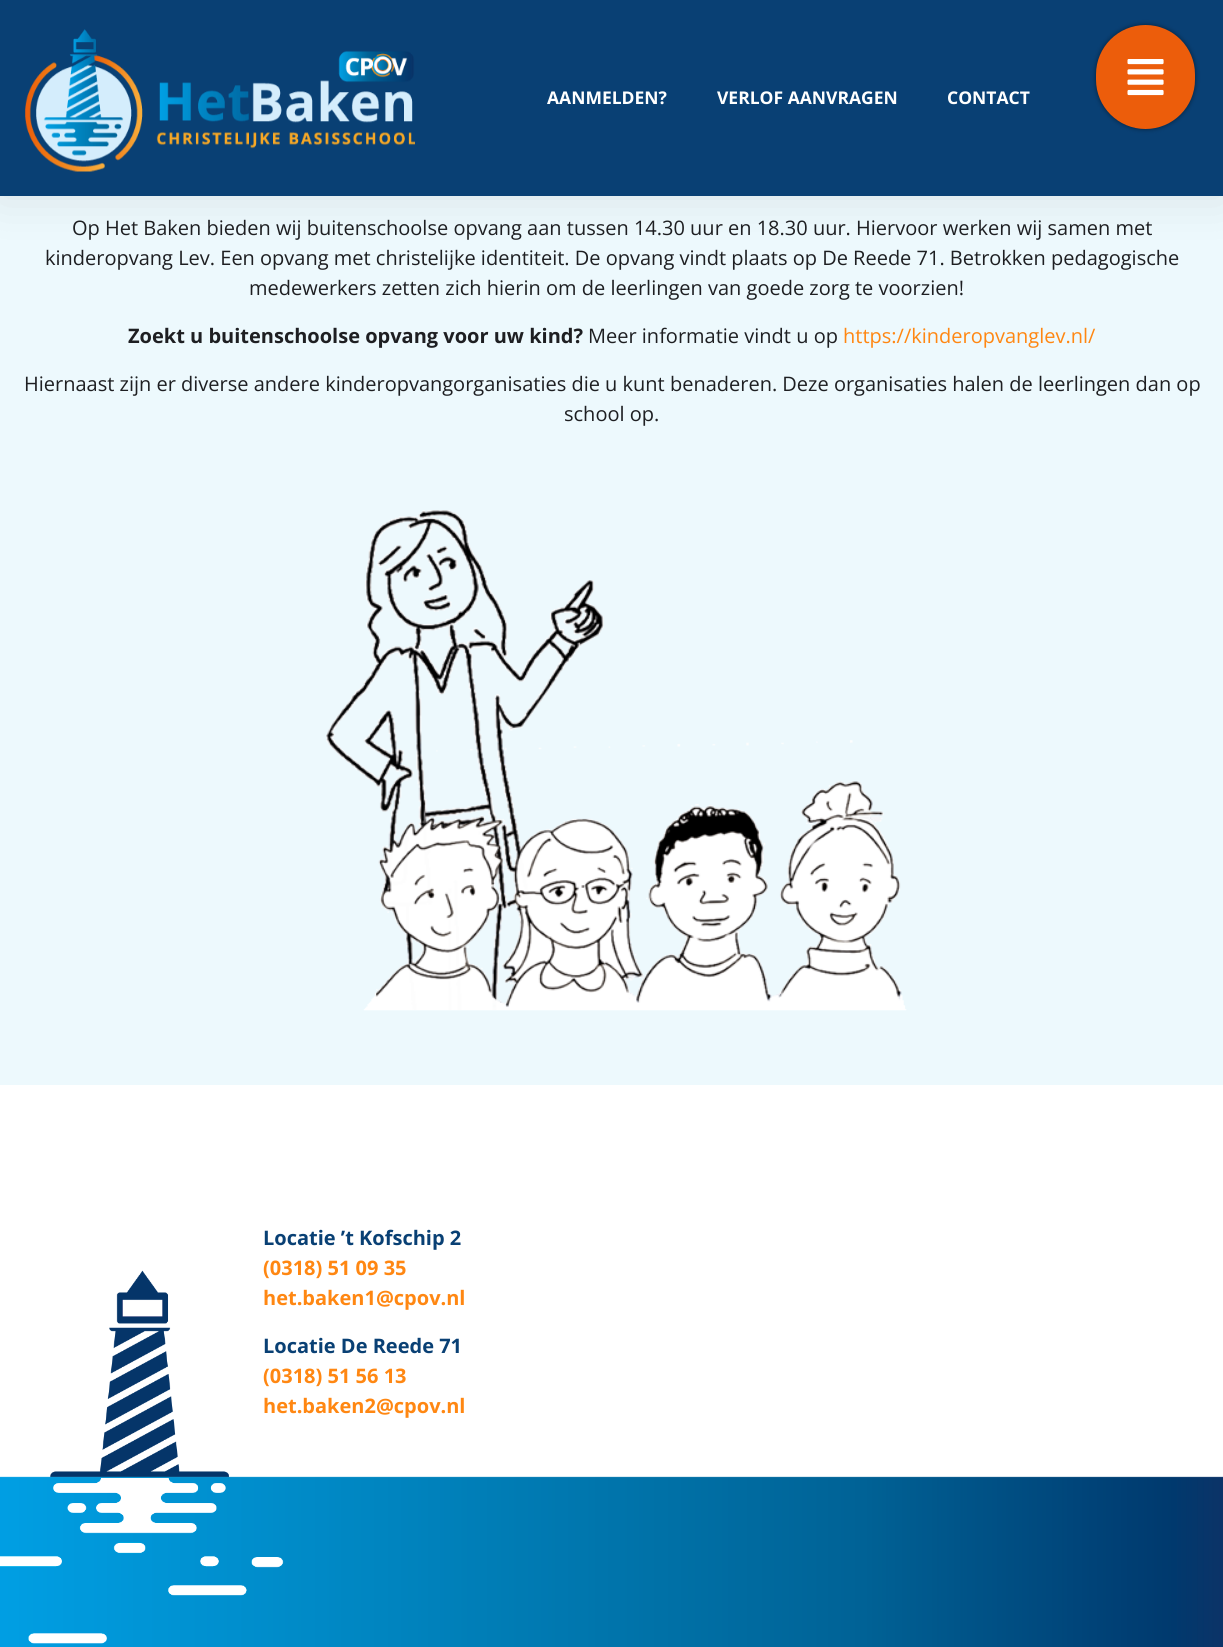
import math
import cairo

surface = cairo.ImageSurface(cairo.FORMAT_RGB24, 1223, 1647)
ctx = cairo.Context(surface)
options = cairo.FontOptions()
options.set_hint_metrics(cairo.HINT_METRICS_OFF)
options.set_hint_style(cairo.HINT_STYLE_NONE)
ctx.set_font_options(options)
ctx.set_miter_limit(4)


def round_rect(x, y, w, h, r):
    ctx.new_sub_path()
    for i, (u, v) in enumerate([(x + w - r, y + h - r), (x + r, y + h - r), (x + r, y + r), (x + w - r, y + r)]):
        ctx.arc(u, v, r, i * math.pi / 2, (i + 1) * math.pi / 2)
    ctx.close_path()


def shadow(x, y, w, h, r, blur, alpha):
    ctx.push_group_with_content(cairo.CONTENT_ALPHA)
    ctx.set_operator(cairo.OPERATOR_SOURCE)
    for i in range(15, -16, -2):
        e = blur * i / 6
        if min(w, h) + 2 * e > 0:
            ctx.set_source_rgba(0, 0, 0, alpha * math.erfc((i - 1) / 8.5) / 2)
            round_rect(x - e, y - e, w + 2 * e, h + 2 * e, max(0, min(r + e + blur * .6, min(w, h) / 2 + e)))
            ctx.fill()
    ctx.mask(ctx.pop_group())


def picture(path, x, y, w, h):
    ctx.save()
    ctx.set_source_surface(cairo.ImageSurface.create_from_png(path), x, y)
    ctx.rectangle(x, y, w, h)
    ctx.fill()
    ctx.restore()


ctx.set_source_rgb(1, 1, 1)
ctx.paint()
ctx.set_source_rgb(0.929, 0.973, 0.992)
ctx.rectangle(0, 196, 1223, 889)
ctx.fill()
ctx.set_source_rgb(0, 0, 0)
shadow(0, 0, 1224, 196, 0, 24, 0.1)
ctx.set_source_rgb(0.039, 0.251, 0.455)
ctx.rectangle(0, 0, 1223, 196)
ctx.fill()
picture("img1.png", 25, 29, 390, 143)
ctx.select_font_face("Open Sans", cairo.FONT_SLANT_NORMAL, cairo.FONT_WEIGHT_BOLD)
ctx.set_font_size(17.5)
ctx.set_source_rgb(1, 1, 1)
ctx.move_to(547, 104)
ctx.show_text("AANMELDEN?")
ctx.move_to(717, 104)
ctx.show_text("VERLOF AANVRAGEN")
ctx.move_to(947, 104)
ctx.show_text("CONTACT")
ctx.set_source_rgb(0, 0, 0)
shadow(1096, 25, 99, 104, 49.5, 2.5, 0.5)
ctx.set_source_rgb(0.922, 0.365, 0.043)
round_rect(1096, 25, 99, 104, 49.5)
ctx.fill()
picture("img2.png", 1127, 59, 37, 37)
ctx.select_font_face("Open Sans")
ctx.set_font_size(20)
ctx.set_source_rgb(0.118, 0.122, 0.133)
ctx.move_to(72, 235)
ctx.show_text("Op Het Baken bieden wij buitenschoolse opvang aan tussen 14.30 uur en 18.30 uur. Hiervoor werken wij samen met")
ctx.move_to(45, 265)
ctx.show_text("kinderopvang Lev. Een opvang met christelijke identiteit. De opvang vindt plaats op De Reede 71. Betrokken pedagogische")
ctx.move_to(249, 295)
ctx.show_text("medewerkers zetten zich hierin om de leerlingen van goede zorg te voorzien!")
ctx.select_font_face("Open Sans", cairo.FONT_SLANT_NORMAL, cairo.FONT_WEIGHT_BOLD)
ctx.move_to(128, 343)
ctx.show_text("Zoekt u buitenschoolse opvang voor uw kind?")
ctx.select_font_face("Open Sans")
ctx.move_to(588, 343)
ctx.show_text("Meer informatie vindt u op")
ctx.set_source_rgb(1, 0.529, 0.071)
ctx.move_to(843, 343)
ctx.show_text("https://kinderopvanglev.nl/")
ctx.set_source_rgb(0.118, 0.122, 0.133)
ctx.move_to(24, 391)
ctx.show_text("Hiernaast zijn er diverse andere kinderopvangorganisaties die u kunt benaderen. Deze organisaties halen de leerlingen dan op")
ctx.move_to(564, 421)
ctx.show_text("school op.")
picture("img3.png", 326, 510, 581, 501)
picture("img4.png", 0, 1270, 1223, 377)
ctx.select_font_face("Open Sans", cairo.FONT_SLANT_NORMAL, cairo.FONT_WEIGHT_BOLD)
ctx.set_source_rgb(0.039, 0.251, 0.455)
ctx.move_to(263, 1245)
ctx.show_text("Locatie ’t Kofschip 2")
ctx.set_source_rgb(1, 0.529, 0.071)
ctx.move_to(263, 1275)
ctx.show_text("(0318) 51 09 35")
ctx.move_to(263, 1305)
ctx.show_text("het.baken1@cpov.nl")
ctx.set_source_rgb(0.039, 0.251, 0.455)
ctx.move_to(263, 1353)
ctx.show_text("Locatie De Reede 71")
ctx.set_source_rgb(1, 0.529, 0.071)
ctx.move_to(263, 1383)
ctx.show_text("(0318) 51 56 13")
ctx.move_to(263, 1413)
ctx.show_text("het.baken2@cpov.nl")
surface.write_to_png("page.png")
